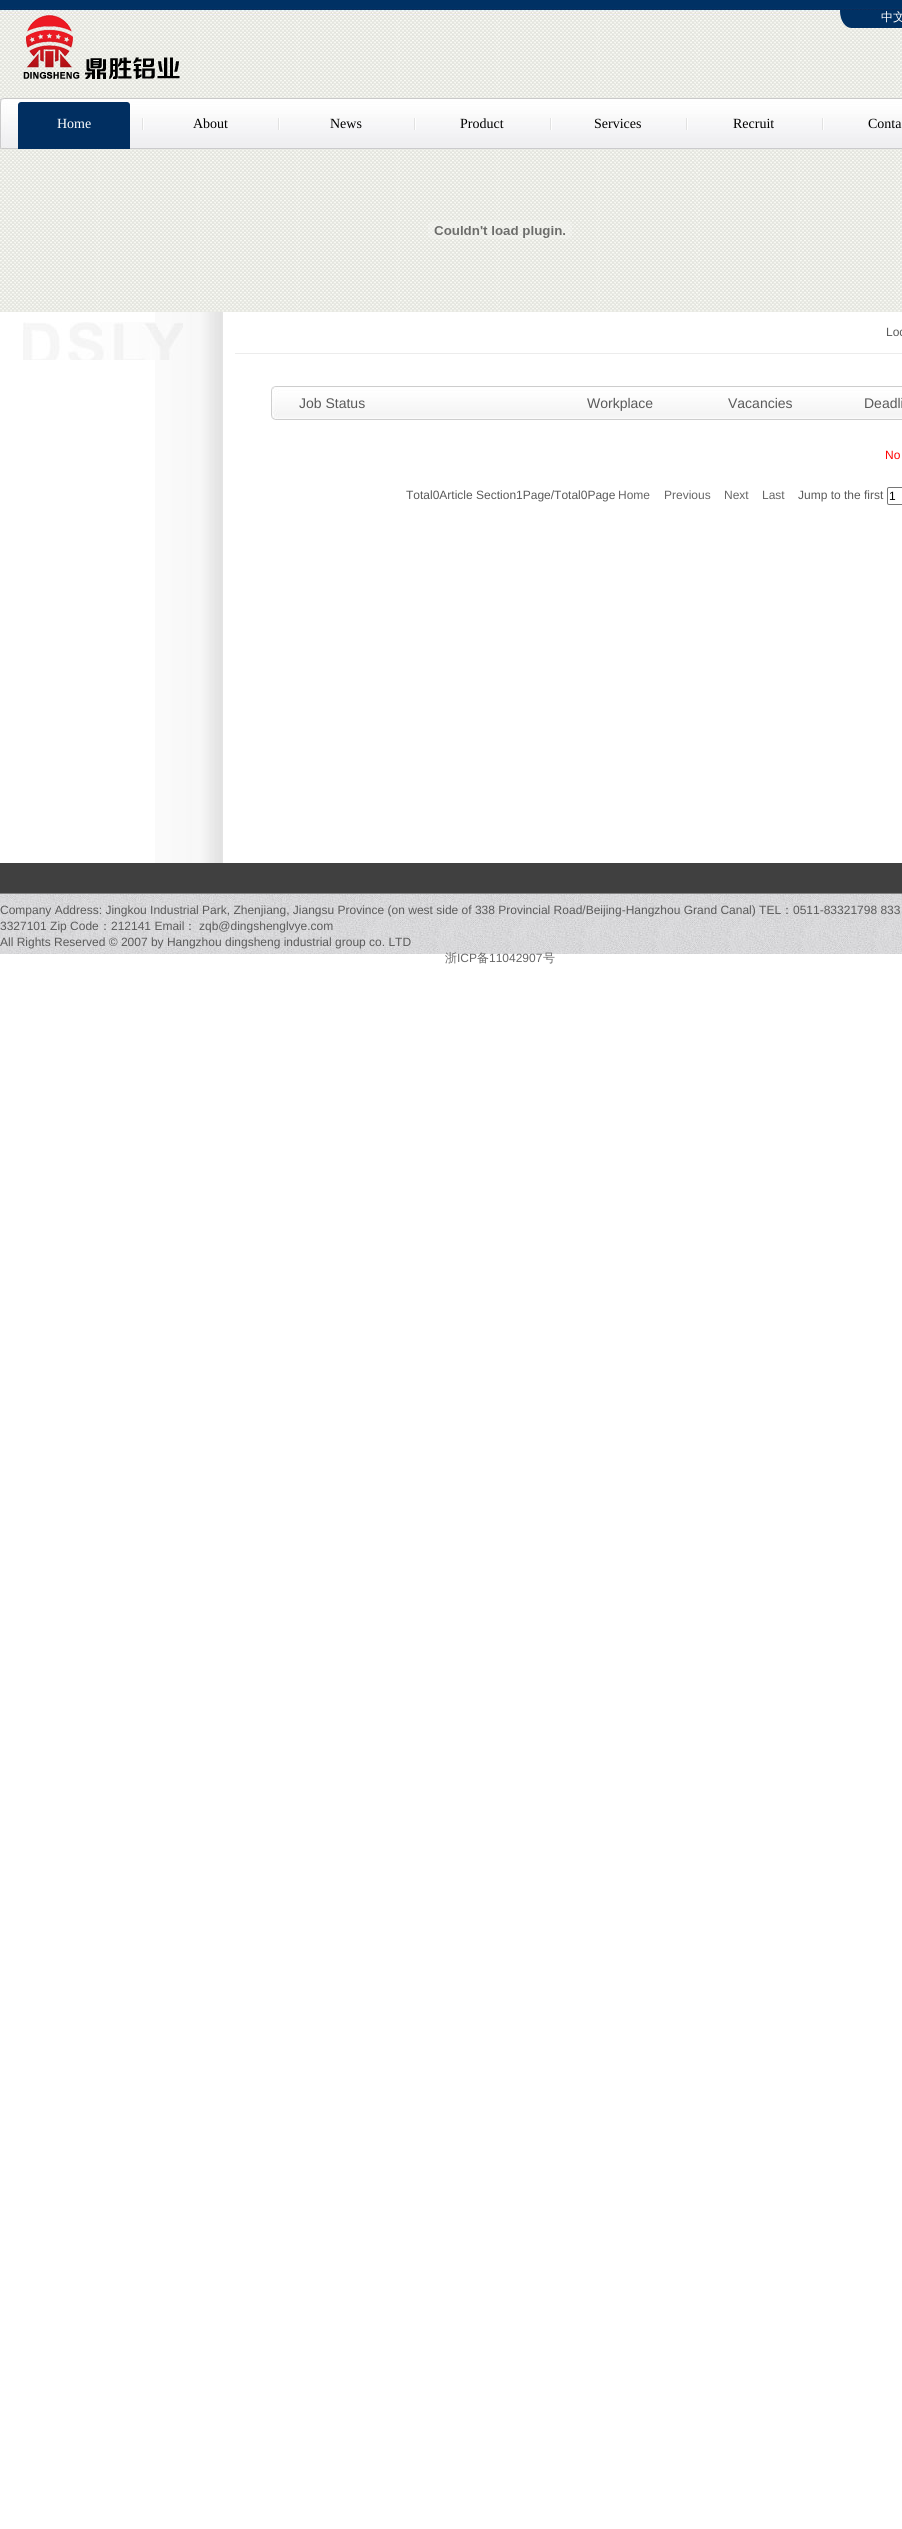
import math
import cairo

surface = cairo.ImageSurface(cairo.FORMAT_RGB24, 902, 2529)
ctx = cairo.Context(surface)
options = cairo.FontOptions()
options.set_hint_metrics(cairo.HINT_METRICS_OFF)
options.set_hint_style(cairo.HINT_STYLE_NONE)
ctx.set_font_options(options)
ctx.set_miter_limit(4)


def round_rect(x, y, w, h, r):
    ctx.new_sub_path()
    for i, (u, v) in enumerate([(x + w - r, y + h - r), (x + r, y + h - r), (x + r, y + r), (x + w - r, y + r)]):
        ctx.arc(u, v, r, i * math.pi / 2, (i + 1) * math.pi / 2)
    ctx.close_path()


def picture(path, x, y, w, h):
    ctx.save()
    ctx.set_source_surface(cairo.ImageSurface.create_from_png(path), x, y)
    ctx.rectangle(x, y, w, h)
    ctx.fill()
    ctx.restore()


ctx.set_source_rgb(1, 1, 1)
ctx.paint()
picture("img1.png", 0, 0, 902, 312)
picture("img2.png", 23, 15, 157, 64)
picture("img3.png", 840, 10, 62, 18)
ctx.select_font_face("WenQuanYi Zen Hei Medium")
ctx.set_font_size(12)
ctx.set_source_rgb(1, 1, 1)
ctx.move_to(881, 21)
ctx.show_text("中文")
picture("img4.png", 0, 98, 902, 51)
picture("img5.png", 18, 102, 112, 47)
ctx.select_font_face("Liberation Serif")
ctx.set_font_size(14)
ctx.move_to(57, 128)
ctx.show_text("Home")
picture("img6.png", 142, 118, 2, 12)
ctx.set_source_rgb(0, 0, 0)
ctx.move_to(193, 128)
ctx.show_text("About")
picture("img6.png", 278, 118, 2, 12)
ctx.move_to(330, 128)
ctx.show_text("News")
picture("img6.png", 414, 118, 2, 12)
ctx.move_to(460, 128)
ctx.show_text("Product")
picture("img6.png", 550, 118, 2, 12)
ctx.move_to(594, 128)
ctx.show_text("Services")
picture("img6.png", 686, 118, 2, 12)
ctx.move_to(733, 128)
ctx.show_text("Recruit")
picture("img6.png", 822, 118, 2, 12)
ctx.move_to(868, 128)
ctx.show_text("Conta")
picture("img7.png", 428, 221, 144, 18)
picture("img8.png", 155, 312, 68, 551)
picture("img9.png", 23, 322, 160, 38)
ctx.set_source_rgb(0.922, 0.922, 0.922)
ctx.rectangle(235, 353, 667, 1)
ctx.fill()
ctx.select_font_face("Liberation Sans")
ctx.set_font_size(12)
ctx.set_source_rgb(0.353, 0.353, 0.353)
ctx.move_to(886, 336)
ctx.show_text("Loc")
picture("img10.png", 271, 386, 631, 34)
ctx.set_font_size(14)
ctx.move_to(299, 408)
ctx.show_text("Job Status")
ctx.move_to(587, 408)
ctx.show_text("Workplace")
ctx.move_to(728, 408)
ctx.show_text("Vacancies")
ctx.move_to(864, 408)
ctx.show_text("Deadli")
ctx.set_font_size(12)
ctx.set_source_rgb(1, 0, 0)
ctx.move_to(885, 459)
ctx.show_text("No")
ctx.set_source_rgb(0.353, 0.353, 0.353)
ctx.move_to(406, 499)
ctx.show_text("Total0Article Section1Page/Total0Page")
ctx.set_source_rgb(0.4, 0.4, 0.4)
ctx.move_to(618, 499)
ctx.show_text("Home")
ctx.move_to(664, 499)
ctx.show_text("Previous")
ctx.move_to(724, 499)
ctx.show_text("Next")
ctx.move_to(762, 499)
ctx.show_text("Last")
ctx.set_source_rgb(0.353, 0.353, 0.353)
ctx.move_to(798, 499)
ctx.show_text("Jump to the first")
round_rect(887.5, 487.5, 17, 17, 1.5)
ctx.set_source_rgb(0.463, 0.463, 0.463)
ctx.set_line_width(1)
ctx.stroke()
ctx.set_source_rgb(0, 0, 0)
ctx.move_to(889, 500)
ctx.show_text("1")
ctx.set_source_rgb(0.251, 0.251, 0.251)
ctx.rectangle(0, 863, 902, 30)
ctx.fill()
ctx.set_source_rgb(0.506, 0.506, 0.506)
ctx.rectangle(0, 893, 902, 1)
ctx.fill()
picture("img11.png", 0, 894, 902, 60)
ctx.set_source_rgb(0.353, 0.353, 0.353)
ctx.move_to(0, 914)
ctx.show_text("Company Address: Jingkou Industrial Park, Zhenjiang, Jiangsu Province (on west side of 338 Provincial Road/Beijing-Hangzhou Grand Canal) TEL")
ctx.select_font_face("WenQuanYi Zen Hei Medium")
ctx.move_to(781, 914)
ctx.show_text("：")
ctx.select_font_face("Liberation Sans")
ctx.move_to(793, 914)
ctx.show_text("0511-83321798 833")
ctx.move_to(0, 930)
ctx.show_text("3327101 Zip Code")
ctx.select_font_face("WenQuanYi Zen Hei Medium")
ctx.move_to(99, 930)
ctx.show_text("：")
ctx.select_font_face("Liberation Sans")
ctx.move_to(111, 930)
ctx.show_text("212141 Email")
ctx.select_font_face("WenQuanYi Zen Hei Medium")
ctx.move_to(184, 930)
ctx.show_text("：")
ctx.select_font_face("Liberation Sans")
ctx.move_to(199, 930)
ctx.show_text("zqb@dingshenglvye.com")
ctx.move_to(0, 946)
ctx.show_text("All Rights Reserved © 2007 by Hangzhou dingsheng industrial group co. LTD")
ctx.select_font_face("WenQuanYi Zen Hei Medium")
ctx.set_source_rgb(0.4, 0.4, 0.4)
ctx.move_to(445, 962)
ctx.show_text("浙")
ctx.select_font_face("Liberation Sans")
ctx.move_to(457, 962)
ctx.show_text("ICP")
ctx.select_font_face("WenQuanYi Zen Hei Medium")
ctx.move_to(477, 962)
ctx.show_text("备")
ctx.select_font_face("Liberation Sans")
ctx.move_to(489, 962)
ctx.show_text("11042907")
ctx.select_font_face("WenQuanYi Zen Hei Medium")
ctx.move_to(543, 962)
ctx.show_text("号")
surface.write_to_png("page.png")
